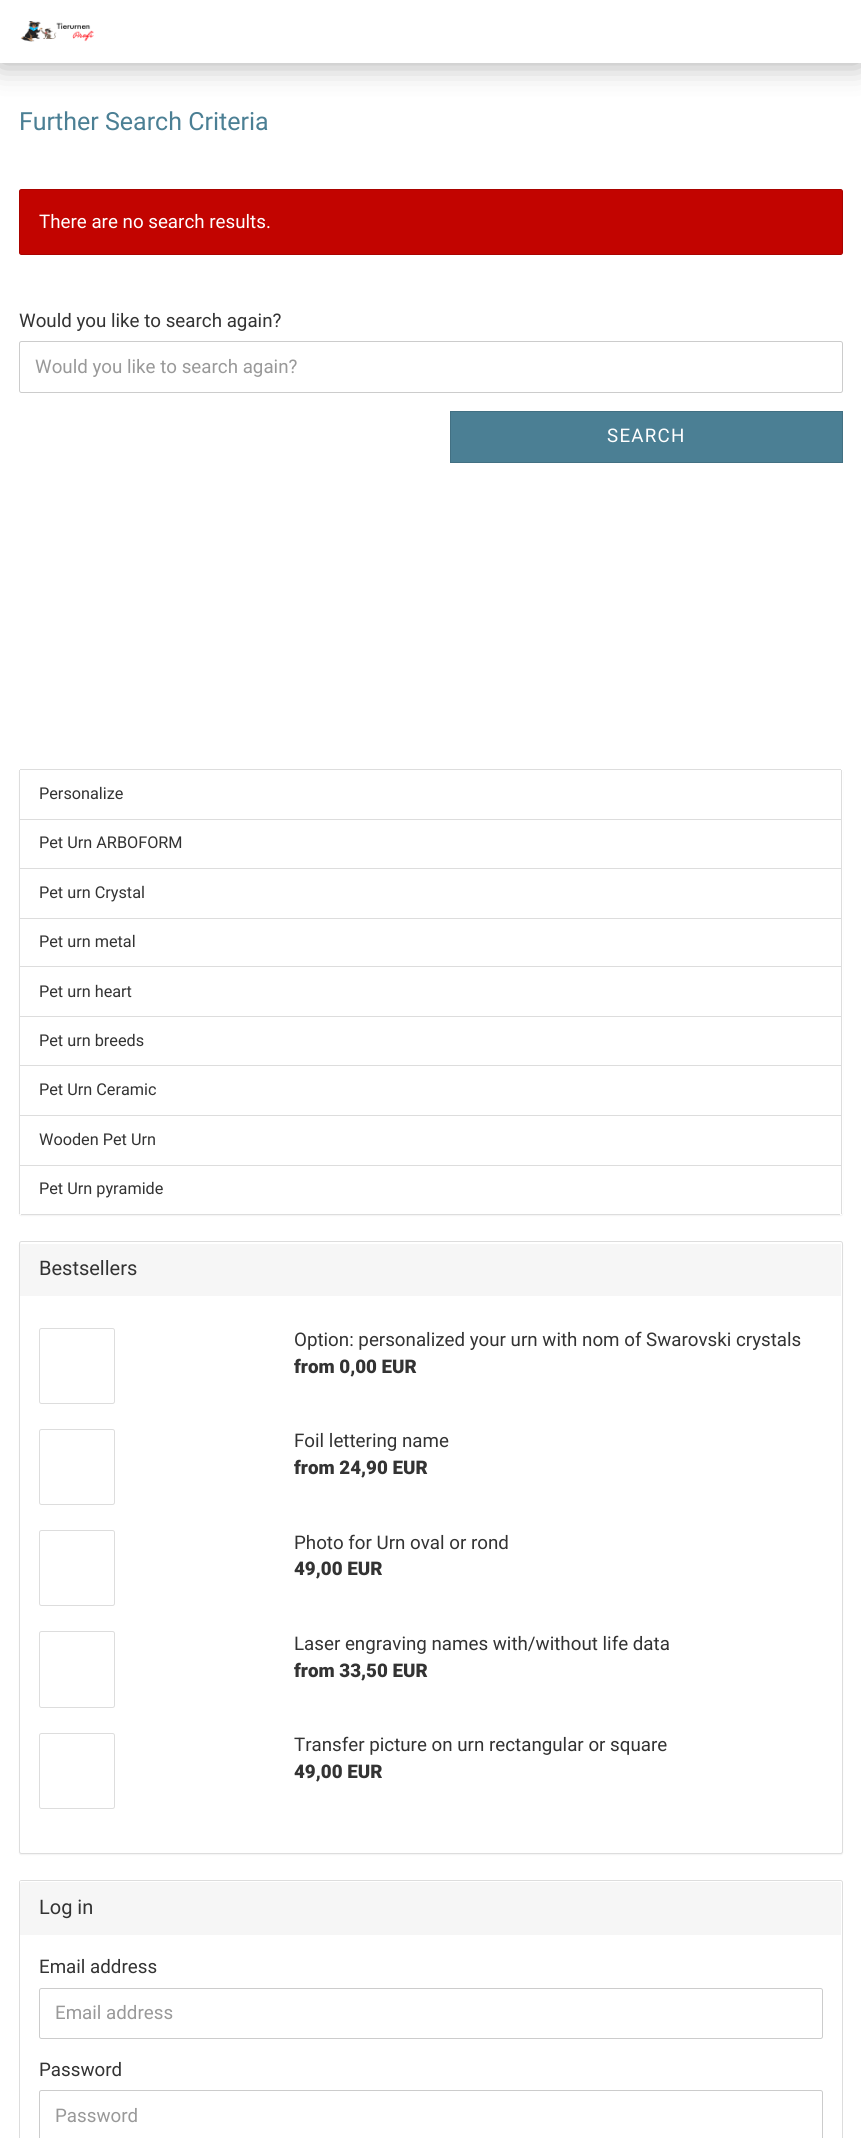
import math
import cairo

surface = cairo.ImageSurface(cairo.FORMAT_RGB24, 861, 2138)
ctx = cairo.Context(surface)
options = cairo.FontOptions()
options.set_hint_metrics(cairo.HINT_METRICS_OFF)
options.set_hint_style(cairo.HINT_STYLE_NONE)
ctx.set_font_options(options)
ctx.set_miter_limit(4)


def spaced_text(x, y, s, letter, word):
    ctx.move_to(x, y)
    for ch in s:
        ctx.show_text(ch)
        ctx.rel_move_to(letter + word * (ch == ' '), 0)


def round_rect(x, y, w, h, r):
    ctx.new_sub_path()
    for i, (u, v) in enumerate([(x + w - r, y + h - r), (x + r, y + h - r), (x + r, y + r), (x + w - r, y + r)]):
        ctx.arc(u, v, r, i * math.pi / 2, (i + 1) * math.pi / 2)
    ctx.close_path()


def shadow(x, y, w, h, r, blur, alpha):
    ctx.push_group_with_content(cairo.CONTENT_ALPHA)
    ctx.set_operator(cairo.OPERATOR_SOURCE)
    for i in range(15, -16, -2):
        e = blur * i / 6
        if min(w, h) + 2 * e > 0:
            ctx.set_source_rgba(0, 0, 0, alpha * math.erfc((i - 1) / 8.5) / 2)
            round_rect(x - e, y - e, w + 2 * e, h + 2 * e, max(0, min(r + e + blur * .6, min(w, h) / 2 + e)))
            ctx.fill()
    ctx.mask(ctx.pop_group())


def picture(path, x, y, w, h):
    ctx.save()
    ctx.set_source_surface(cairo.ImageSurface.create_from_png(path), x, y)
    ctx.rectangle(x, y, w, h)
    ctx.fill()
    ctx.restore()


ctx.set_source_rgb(1, 1, 1)
ctx.paint()
ctx.set_source_rgb(0, 0, 0)
shadow(0, 0, 861, 63, 0, 15.5, 0.35)
ctx.set_source_rgb(1, 1, 1)
ctx.rectangle(0, 0, 861, 63)
ctx.fill()
picture("img1.png", 20, 21, 74, 21)
ctx.select_font_face("Roboto")
ctx.set_font_size(25)
ctx.set_source_rgb(0.294, 0.498, 0.58)
ctx.move_to(19, 130)
ctx.show_text("Further Search Criteria")
ctx.set_source_rgb(0.761, 0.016, 0)
round_rect(19.5, 189.5, 823, 65, 2)
ctx.fill_preserve()
ctx.set_source_rgb(0.663, 0.012, 0)
ctx.set_line_width(1)
ctx.stroke()
ctx.set_font_size(18.75)
ctx.set_source_rgb(1, 1, 1)
ctx.move_to(39, 228)
ctx.show_text("There are no search results.")
ctx.set_source_rgb(0.2, 0.2, 0.2)
ctx.move_to(19, 327)
ctx.show_text("Would you like to search again?")
round_rect(19.5, 341.5, 823, 51, 2)
ctx.set_source_rgb(0.8, 0.8, 0.8)
ctx.stroke()
ctx.set_source_rgb(0.6, 0.6, 0.6)
ctx.move_to(35, 373)
ctx.show_text("Would you like to search again?")
ctx.set_source_rgb(0.294, 0.498, 0.58)
ctx.rectangle(450.5, 411.5, 392, 51)
ctx.fill_preserve()
ctx.set_source_rgb(0.259, 0.439, 0.514)
ctx.stroke()
ctx.set_source_rgb(1, 1, 1)
spaced_text(607, 442, "SEARCH", 1.25, 0)
ctx.set_source_rgb(0, 0, 0)
shadow(19, 770, 824, 446, 2.5, 0.5, 0.05)
ctx.set_source_rgb(1, 1, 1)
round_rect(19, 769, 824, 446, 2.5)
ctx.fill()
ctx.set_source_rgb(0.867, 0.867, 0.867)
ctx.rectangle(20, 769, 821, 1)
ctx.fill()
ctx.rectangle(841, 770, 1, 444)
ctx.fill()
ctx.rectangle(19, 770, 1, 444)
ctx.fill()
ctx.rectangle(20, 819, 821, 1)
ctx.fill()
ctx.set_font_size(16.25)
ctx.set_source_rgb(0.2, 0.2, 0.2)
ctx.move_to(39, 799)
ctx.show_text("Personalize")
ctx.set_source_rgb(0.867, 0.867, 0.867)
ctx.rectangle(20, 868, 821, 1)
ctx.fill()
ctx.set_source_rgb(0.2, 0.2, 0.2)
ctx.move_to(39, 848)
ctx.show_text("Pet Urn ARBOFORM")
ctx.set_source_rgb(0.867, 0.867, 0.867)
ctx.rectangle(20, 918, 821, 1)
ctx.fill()
ctx.set_source_rgb(0.2, 0.2, 0.2)
ctx.move_to(39, 898)
ctx.show_text("Pet urn Crystal")
ctx.set_source_rgb(0.867, 0.867, 0.867)
ctx.rectangle(20, 966, 821, 1)
ctx.fill()
ctx.set_source_rgb(0.2, 0.2, 0.2)
ctx.move_to(39, 947)
ctx.show_text("Pet urn metal")
ctx.set_source_rgb(0.867, 0.867, 0.867)
ctx.rectangle(20, 1016, 821, 1)
ctx.fill()
ctx.set_source_rgb(0.2, 0.2, 0.2)
ctx.move_to(39, 997)
ctx.show_text("Pet urn heart")
ctx.set_source_rgb(0.867, 0.867, 0.867)
ctx.rectangle(20, 1065, 821, 1)
ctx.fill()
ctx.set_source_rgb(0.2, 0.2, 0.2)
ctx.move_to(39, 1046)
ctx.show_text("Pet urn breeds")
ctx.set_source_rgb(0.867, 0.867, 0.867)
ctx.rectangle(20, 1115, 821, 1)
ctx.fill()
ctx.set_source_rgb(0.2, 0.2, 0.2)
ctx.move_to(39, 1095)
ctx.show_text("Pet Urn Ceramic")
ctx.set_source_rgb(0.867, 0.867, 0.867)
ctx.rectangle(20, 1165, 821, 1)
ctx.fill()
ctx.set_source_rgb(0.2, 0.2, 0.2)
ctx.move_to(39, 1145)
ctx.show_text("Wooden Pet Urn")
ctx.set_source_rgb(0.867, 0.867, 0.867)
ctx.rectangle(21, 1214, 819, 1)
ctx.fill()
ctx.set_source_rgb(0.2, 0.2, 0.2)
ctx.move_to(39, 1194)
ctx.show_text("Pet Urn pyramide")
ctx.set_source_rgb(0, 0, 0)
shadow(19, 1243, 824, 612, 2.5, 0.5, 0.05)
ctx.set_source_rgb(1, 1, 1)
round_rect(19.5, 1241.5, 823, 612, 2)
ctx.fill_preserve()
ctx.set_source_rgb(0.867, 0.867, 0.867)
ctx.stroke()
ctx.set_source_rgb(0.961, 0.961, 0.961)
ctx.new_path()
ctx.move_to(21, 1243)
ctx.line_to(840, 1243)
ctx.curve_to(840.5, 1243, 841, 1243.5, 841, 1244)
ctx.line_to(841, 1296)
ctx.line_to(20, 1296)
ctx.line_to(20, 1244)
ctx.curve_to(20, 1243.5, 20.5, 1243, 21, 1243)
ctx.close_path()
ctx.fill()
ctx.set_source_rgb(1, 1, 1)
ctx.new_path()
ctx.move_to(21, 1244)
ctx.line_to(840, 1244)
ctx.curve_to(841, 1244, 841, 1244, 841, 1245)
ctx.line_to(841, 1244)
ctx.line_to(840, 1243)
ctx.line_to(21, 1243)
ctx.line_to(20, 1245)
ctx.close_path()
ctx.fill()
ctx.set_font_size(20)
ctx.set_source_rgb(0.2, 0.2, 0.2)
ctx.move_to(39, 1275)
ctx.show_text("Bestsellers")
round_rect(39.5, 1328.5, 75, 75, 2)
ctx.set_source_rgb(0.867, 0.867, 0.867)
ctx.stroke()
ctx.set_font_size(18.75)
ctx.set_source_rgb(0.2, 0.2, 0.2)
ctx.move_to(294, 1346)
ctx.show_text("Option: personalized your urn with nom of Swarovski crystals")
ctx.select_font_face("Roboto Black")
ctx.move_to(294, 1373)
ctx.show_text("from 0,00 EUR")
round_rect(39.5, 1429.5, 75, 75, 2)
ctx.set_source_rgb(0.867, 0.867, 0.867)
ctx.stroke()
ctx.select_font_face("Roboto")
ctx.set_source_rgb(0.2, 0.2, 0.2)
ctx.move_to(294, 1447)
ctx.show_text("Foil lettering name")
ctx.select_font_face("Roboto Black")
ctx.move_to(294, 1474)
ctx.show_text("from 24,90 EUR")
round_rect(39.5, 1530.5, 75, 75, 2)
ctx.set_source_rgb(0.867, 0.867, 0.867)
ctx.stroke()
ctx.select_font_face("Roboto")
ctx.set_source_rgb(0.2, 0.2, 0.2)
ctx.move_to(294, 1549)
ctx.show_text("Photo for Urn oval or rond")
ctx.select_font_face("Roboto Black")
ctx.move_to(294, 1575)
ctx.show_text("49,00 EUR")
round_rect(39.5, 1631.5, 75, 76, 2)
ctx.set_source_rgb(0.867, 0.867, 0.867)
ctx.stroke()
ctx.select_font_face("Roboto")
ctx.set_source_rgb(0.2, 0.2, 0.2)
ctx.move_to(294, 1650)
ctx.show_text("Laser engraving names with/without life data")
ctx.select_font_face("Roboto Black")
ctx.move_to(294, 1677)
ctx.show_text("from 33,50 EUR")
round_rect(39.5, 1733.5, 75, 75, 2)
ctx.set_source_rgb(0.867, 0.867, 0.867)
ctx.stroke()
ctx.select_font_face("Roboto")
ctx.set_source_rgb(0.2, 0.2, 0.2)
ctx.move_to(294, 1751)
ctx.show_text("Transfer picture on urn rectangular or square")
ctx.select_font_face("Roboto Black")
ctx.move_to(294, 1778)
ctx.show_text("49,00 EUR")
round_rect(19.5, 1880.5, 823, 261, 2)
ctx.set_source_rgb(0.867, 0.867, 0.867)
ctx.stroke()
ctx.set_source_rgb(0.961, 0.961, 0.961)
ctx.new_path()
ctx.move_to(21, 1881)
ctx.line_to(840, 1881)
ctx.curve_to(840.5, 1881, 841, 1881.5, 841, 1882)
ctx.line_to(841, 1935)
ctx.line_to(20, 1935)
ctx.line_to(20, 1882)
ctx.curve_to(20, 1881.5, 20.5, 1881, 21, 1881)
ctx.close_path()
ctx.fill()
ctx.set_source_rgb(1, 1, 1)
ctx.new_path()
ctx.move_to(21, 1882)
ctx.line_to(840, 1882)
ctx.curve_to(841, 1882, 841, 1883, 841, 1884)
ctx.line_to(841, 1881)
ctx.line_to(21, 1881)
ctx.line_to(20, 1882)
ctx.line_to(20, 1884)
ctx.close_path()
ctx.fill()
ctx.select_font_face("Roboto")
ctx.set_font_size(20)
ctx.set_source_rgb(0.2, 0.2, 0.2)
ctx.move_to(39, 1914)
ctx.show_text("Log in")
ctx.set_font_size(18.75)
ctx.move_to(39, 1973)
ctx.show_text("Email address")
round_rect(39.5, 1988.5, 783, 50, 2)
ctx.set_source_rgb(0.8, 0.8, 0.8)
ctx.stroke()
ctx.set_source_rgb(0.6, 0.6, 0.6)
ctx.move_to(55, 2019)
ctx.show_text("Email address")
ctx.set_source_rgb(0.2, 0.2, 0.2)
ctx.move_to(39, 2076)
ctx.show_text("Password")
round_rect(39.5, 2090.5, 783, 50, 2)
ctx.set_source_rgb(0.8, 0.8, 0.8)
ctx.stroke()
ctx.set_source_rgb(0.6, 0.6, 0.6)
ctx.move_to(55, 2122)
ctx.show_text("Password")
surface.write_to_png("page.png")
